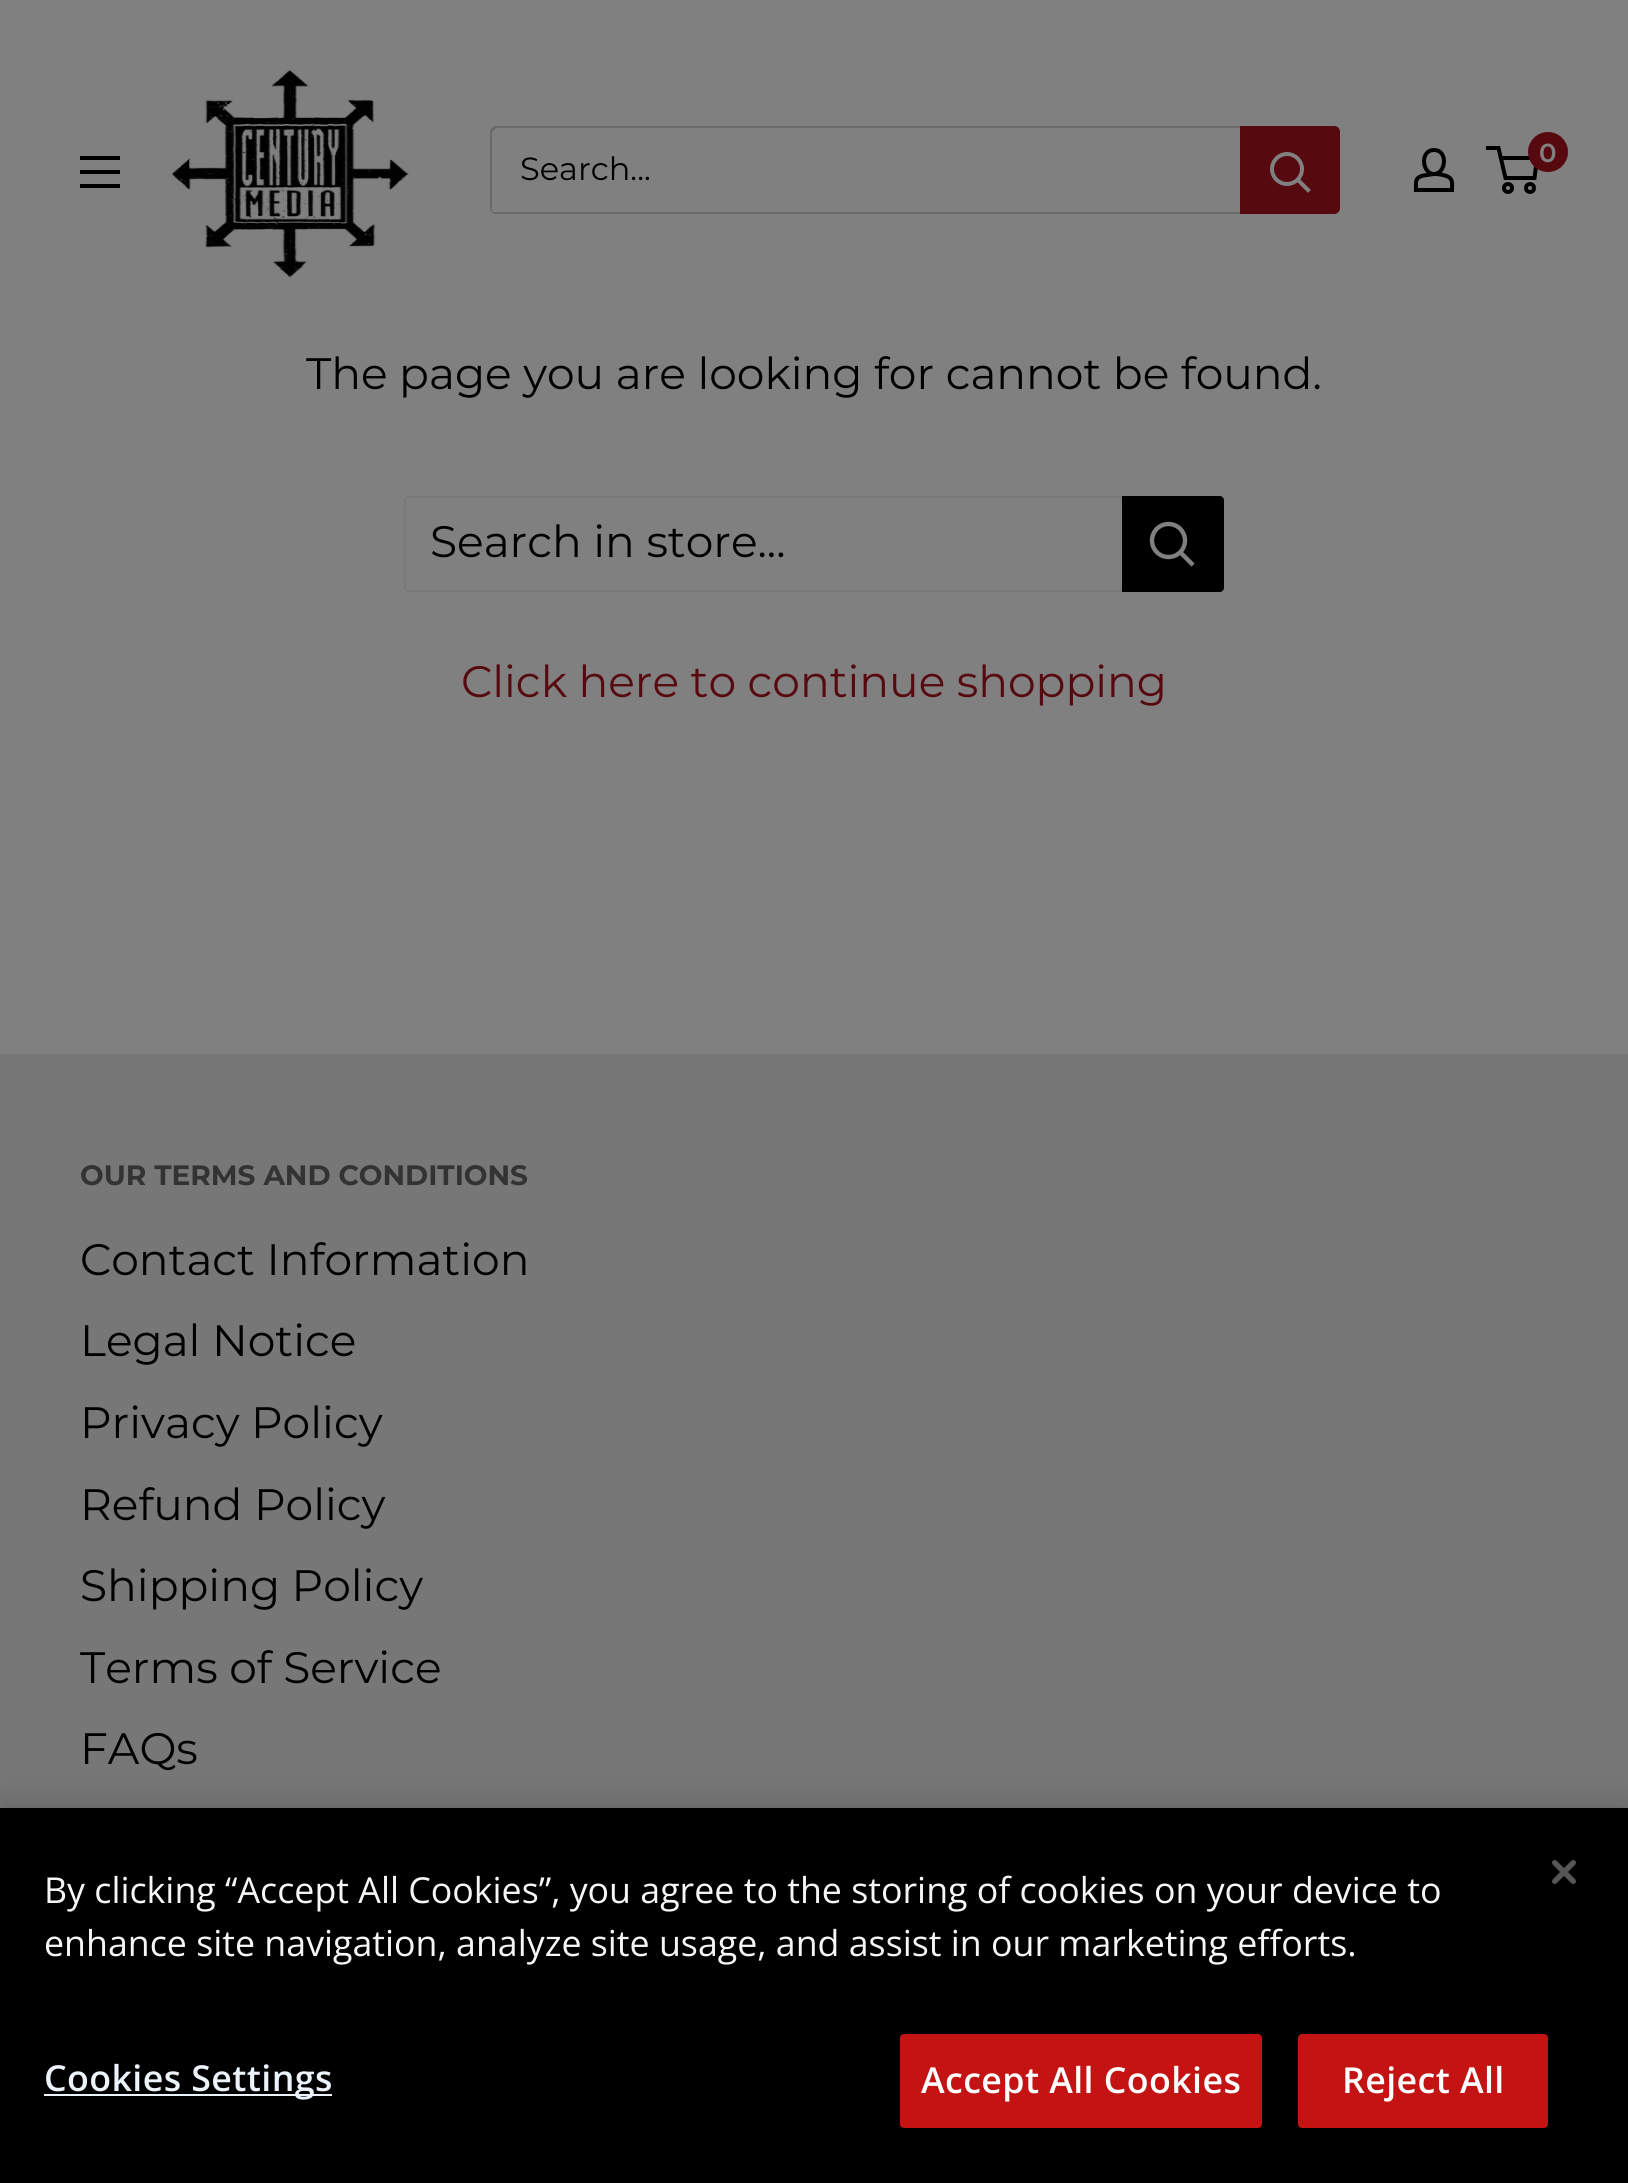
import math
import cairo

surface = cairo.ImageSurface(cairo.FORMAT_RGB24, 1628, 2183)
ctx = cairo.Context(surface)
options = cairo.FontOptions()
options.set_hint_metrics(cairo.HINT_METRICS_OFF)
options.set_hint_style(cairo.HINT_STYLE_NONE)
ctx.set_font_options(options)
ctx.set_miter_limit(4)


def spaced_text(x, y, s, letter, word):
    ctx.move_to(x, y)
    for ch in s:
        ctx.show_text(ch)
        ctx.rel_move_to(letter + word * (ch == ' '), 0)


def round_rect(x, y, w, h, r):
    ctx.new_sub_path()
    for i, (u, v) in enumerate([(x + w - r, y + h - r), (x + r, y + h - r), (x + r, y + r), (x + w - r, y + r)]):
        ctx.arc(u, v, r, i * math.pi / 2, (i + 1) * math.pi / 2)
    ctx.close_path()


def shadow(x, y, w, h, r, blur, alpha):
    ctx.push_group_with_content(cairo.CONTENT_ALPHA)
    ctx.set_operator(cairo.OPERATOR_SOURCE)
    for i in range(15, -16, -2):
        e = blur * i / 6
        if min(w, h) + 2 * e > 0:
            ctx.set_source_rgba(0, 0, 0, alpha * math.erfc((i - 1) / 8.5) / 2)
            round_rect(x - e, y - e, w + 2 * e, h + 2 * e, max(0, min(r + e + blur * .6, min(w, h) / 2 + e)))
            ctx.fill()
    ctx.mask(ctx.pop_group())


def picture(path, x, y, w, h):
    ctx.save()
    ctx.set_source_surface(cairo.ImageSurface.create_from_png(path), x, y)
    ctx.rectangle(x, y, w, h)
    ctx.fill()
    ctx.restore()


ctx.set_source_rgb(0.502, 0.502, 0.502)
ctx.paint()
picture("img1.png", 171, 70, 238, 208)
ctx.new_path()
ctx.move_to(1434, 174)
ctx.curve_to(1438, 174, 1441.5, 174.5, 1445, 175.5)
ctx.curve_to(1453.5, 178, 1452, 182.5, 1452, 190)
ctx.line_to(1416, 190)
ctx.curve_to(1416, 182, 1414.5, 177.5, 1423.5, 175.5)
ctx.close_path()
ctx.move_to(1434, 174)
ctx.curve_to(1422, 174, 1419.5, 150, 1434, 150)
ctx.curve_to(1448.5, 150, 1446, 174, 1434, 174)
ctx.close_path()
ctx.set_source_rgb(0, 0, 0)
ctx.set_line_width(4)
ctx.stroke()
ctx.arc(1508, 188, 4, 0, 2 * math.pi)
ctx.stroke()
ctx.arc(1530, 188, 4, 0, 2 * math.pi)
ctx.stroke()
ctx.new_path()
ctx.move_to(1500.5, 158)
ctx.line_to(1537, 158)
ctx.line_to(1534.5, 178)
ctx.line_to(1505.5, 178)
ctx.line_to(1498.5, 148)
ctx.line_to(1486, 148)
ctx.stroke()
ctx.set_source_rgb(0.341, 0.039, 0.063)
ctx.arc(1548, 152, 20, 0, 2 * math.pi)
ctx.fill()
ctx.select_font_face("Montserrat SemiBold")
ctx.set_font_size(26)
ctx.set_source_rgb(0.502, 0.502, 0.502)
ctx.move_to(1539, 162)
ctx.show_text("0")
ctx.set_source_rgb(0, 0, 0)
ctx.set_fill_rule(cairo.FILL_RULE_EVEN_ODD)
ctx.new_path()
ctx.move_to(80, 184)
ctx.line_to(120, 184)
ctx.line_to(120, 188)
ctx.line_to(80, 188)
ctx.close_path()
ctx.move_to(80, 156)
ctx.line_to(120, 156)
ctx.line_to(120, 160)
ctx.line_to(80, 160)
ctx.close_path()
ctx.move_to(80, 170)
ctx.line_to(120, 170)
ctx.line_to(120, 174)
ctx.line_to(80, 174)
ctx.close_path()
ctx.fill()
ctx.set_source_rgb(0.412, 0.412, 0.412)
ctx.set_fill_rule(cairo.FILL_RULE_WINDING)
ctx.new_path()
ctx.move_to(491, 211)
ctx.curve_to(492, 213, 494, 214, 496, 214)
ctx.line_to(1334, 214)
ctx.curve_to(1337, 214, 1340, 211, 1340, 208)
ctx.line_to(1340, 132)
ctx.curve_to(1340, 130, 1339, 128, 1337, 127)
ctx.curve_to(1338, 128, 1338, 129, 1338, 130)
ctx.line_to(1338, 206)
ctx.curve_to(1338, 209, 1335, 212, 1332, 212)
ctx.line_to(494, 212)
ctx.curve_to(493, 212, 492, 212, 491, 211)
ctx.close_path()
ctx.fill()
ctx.set_source_rgba(0.2, 0.2, 0.2, 0.3)
ctx.new_path()
ctx.move_to(498, 128)
ctx.line_to(1336, 128)
ctx.line_to(1339, 129)
ctx.curve_to(1338, 127, 1336, 126, 1334, 126)
ctx.line_to(496, 126)
ctx.curve_to(493, 126, 490, 129, 490, 132)
ctx.line_to(490, 208)
ctx.curve_to(490, 210, 491, 212, 493, 213)
ctx.curve_to(492, 212, 492, 211, 492, 210)
ctx.line_to(492, 134)
ctx.curve_to(492, 131, 495, 128, 498, 128)
ctx.close_path()
ctx.fill()
ctx.select_font_face("Montserrat")
ctx.set_font_size(32)
ctx.set_source_rgb(0, 0, 0)
ctx.move_to(520, 180)
ctx.show_text("Search...")
ctx.set_source_rgb(0.341, 0.039, 0.063)
ctx.new_path()
ctx.move_to(1240, 126)
ctx.line_to(1334, 126)
ctx.curve_to(1337.5, 126, 1340, 128.5, 1340, 132)
ctx.line_to(1340, 208)
ctx.curve_to(1340, 211.5, 1337.5, 214, 1334, 214)
ctx.line_to(1240, 214)
ctx.close_path()
ctx.fill()
ctx.new_path()
ctx.move_to(1308, 190)
ctx.line_to(1298, 180)
ctx.set_source_rgb(0.502, 0.502, 0.502)
ctx.set_line_cap(cairo.LINE_CAP_SQUARE)
ctx.stroke()
ctx.arc(1287, 169, 15, 0, 2 * math.pi)
ctx.set_line_cap(cairo.LINE_CAP_BUTT)
ctx.stroke()
ctx.set_font_size(44)
ctx.set_source_rgb(0, 0, 0)
ctx.move_to(306, 389)
ctx.show_text("The page you are looking for cannot be found.")
ctx.set_source_rgb(0.475, 0.475, 0.475)
ctx.rectangle(406, 496, 716, 2)
ctx.fill()
ctx.rectangle(406, 590, 716, 2)
ctx.fill()
ctx.rectangle(404, 498, 2, 92)
ctx.fill()
ctx.set_source_rgb(0, 0, 0)
ctx.move_to(430, 557)
ctx.show_text("Search in store...")
ctx.new_path()
ctx.move_to(1122, 496)
ctx.line_to(1220, 496)
ctx.curve_to(1222, 496, 1224, 498, 1224, 500)
ctx.line_to(1224, 588)
ctx.curve_to(1224, 590, 1222, 592, 1220, 592)
ctx.line_to(1122, 592)
ctx.close_path()
ctx.fill()
ctx.new_path()
ctx.move_to(1191.5, 563.5)
ctx.line_to(1180.5, 552.5)
ctx.set_source_rgb(0.502, 0.502, 0.502)
ctx.set_line_width(4.4)
ctx.set_line_cap(cairo.LINE_CAP_SQUARE)
ctx.stroke()
ctx.arc(1168.5, 540.5, 16.5, 0, 2 * math.pi)
ctx.set_line_cap(cairo.LINE_CAP_BUTT)
ctx.stroke()
ctx.set_source_rgb(0.341, 0.039, 0.063)
ctx.move_to(461, 697)
ctx.show_text("Click here to continue shopping")
ctx.set_source_rgb(0.467, 0.467, 0.467)
ctx.rectangle(0, 1054, 1628, 754)
ctx.fill()
ctx.select_font_face("Montserrat", cairo.FONT_SLANT_NORMAL, cairo.FONT_WEIGHT_BOLD)
ctx.set_font_size(28)
ctx.set_source_rgb(0.2, 0.2, 0.2)
ctx.move_to(80, 1185)
ctx.show_text("OUR TERMS AND CONDITIONS")
ctx.select_font_face("Montserrat")
ctx.set_font_size(44)
ctx.set_source_rgb(0, 0, 0)
ctx.move_to(80, 1275)
ctx.show_text("Contact Information")
ctx.move_to(80, 1356)
ctx.show_text("Legal Notice")
ctx.move_to(80, 1438)
ctx.show_text("Privacy Policy")
ctx.move_to(80, 1520)
ctx.show_text("Refund Policy")
ctx.move_to(80, 1601)
ctx.show_text("Shipping Policy")
ctx.move_to(80, 1683)
ctx.show_text("Terms of Service")
ctx.move_to(80, 1764)
ctx.show_text("FAQs")
ctx.set_source_rgb(0, 0, 0)
shadow(0, 1808, 1628, 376, 0, 18, 0.2)
ctx.set_source_rgb(0, 0, 0)
ctx.rectangle(0, 1808, 1628, 375)
ctx.fill()
picture("img2.png", 1552, 1860, 24, 24)
ctx.select_font_face("Open Sans")
ctx.set_font_size(35.75)
ctx.set_source_rgb(0.961, 0.961, 0.961)
ctx.move_to(44, 1903)
ctx.show_text("By clicking “Accept All Cookies”, you agree to the storing of cookies on your device to")
ctx.move_to(44, 1956)
ctx.show_text("enhance site navigation, analyze site usage, and assist in our marketing efforts.")
ctx.set_source_rgb(0.922, 0.953, 0.98)
ctx.rectangle(44, 2094, 288, 2)
ctx.fill()
ctx.select_font_face("Open Sans SemiBold")
spaced_text(44, 2091, "Cookies Settings", 0.4, 0)
ctx.set_source_rgb(0.765, 0.075, 0.075)
round_rect(901, 2035, 360, 92, 3)
ctx.fill_preserve()
ctx.set_line_width(2)
ctx.stroke()
ctx.set_source_rgb(1, 1, 1)
spaced_text(921, 2093, "Accept All Cookies", 0.4, 0)
ctx.set_source_rgb(0.765, 0.075, 0.075)
round_rect(1299, 2035, 248, 92, 3)
ctx.fill_preserve()
ctx.stroke()
ctx.set_source_rgb(1, 1, 1)
spaced_text(1342, 2093, "Reject All", 0.4, 0)
surface.write_to_png("page.png")
